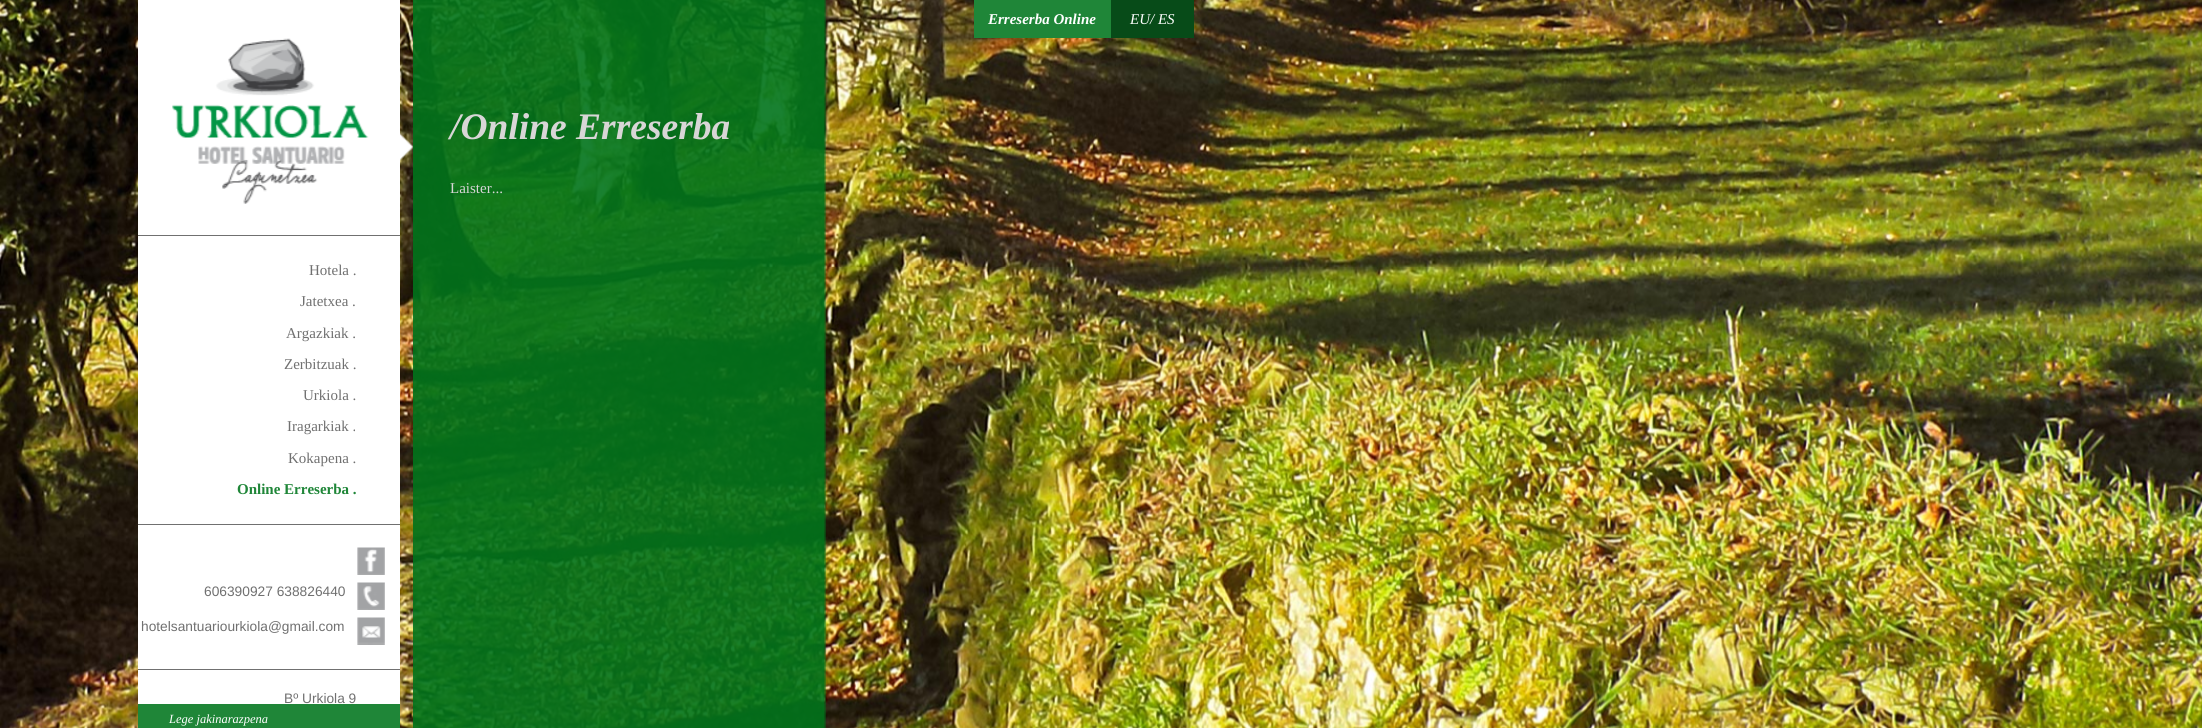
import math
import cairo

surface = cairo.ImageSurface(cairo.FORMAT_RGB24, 2202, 728)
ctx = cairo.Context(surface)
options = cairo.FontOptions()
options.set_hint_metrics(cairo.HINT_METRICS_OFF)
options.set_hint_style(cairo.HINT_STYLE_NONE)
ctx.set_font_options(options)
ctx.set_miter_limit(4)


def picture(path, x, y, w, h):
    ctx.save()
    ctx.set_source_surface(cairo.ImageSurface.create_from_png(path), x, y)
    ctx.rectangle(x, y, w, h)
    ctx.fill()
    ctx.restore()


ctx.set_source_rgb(1, 1, 1)
ctx.paint()
picture("img1.png", 0, 0, 2202, 728)
ctx.set_source_rgb(0.122, 0.525, 0.22)
ctx.rectangle(974, 0, 137, 38)
ctx.fill()
ctx.select_font_face("Liberation Serif", cairo.FONT_SLANT_ITALIC, cairo.FONT_WEIGHT_BOLD)
ctx.set_font_size(15)
ctx.set_source_rgb(1, 1, 1)
ctx.move_to(988, 24)
ctx.show_text("Erreserba Online")
ctx.set_source_rgb(0.031, 0.294, 0.094)
ctx.rectangle(1111, 0, 83, 38)
ctx.fill()
ctx.select_font_face("Liberation Serif", cairo.FONT_SLANT_ITALIC)
ctx.set_source_rgb(1, 1, 1)
ctx.move_to(1130, 24)
ctx.show_text("EU/ ES")
picture("img2.png", 400, 133, 14, 28)
picture("img3.png", 413, 0, 413, 728)
ctx.select_font_face("Liberation Serif", cairo.FONT_SLANT_ITALIC, cairo.FONT_WEIGHT_BOLD)
ctx.set_font_size(37.5)
ctx.set_source_rgb(0.847, 0.839, 0.839)
ctx.move_to(450, 139)
ctx.show_text("/Online Erreserba")
ctx.select_font_face("Liberation Serif")
ctx.set_font_size(15)
ctx.move_to(450, 193)
ctx.show_text("Laister...")
ctx.set_source_rgb(1, 1, 1)
ctx.rectangle(138, 0, 262, 704)
ctx.fill()
picture("img4.png", 172, 38, 197, 166)
ctx.set_source_rgb(0.439, 0.439, 0.439)
ctx.rectangle(138, 235, 262, 1)
ctx.fill()
ctx.move_to(309, 275)
ctx.show_text("Hotela .")
ctx.move_to(300, 306)
ctx.show_text("Jatetxea .")
ctx.move_to(286, 338)
ctx.show_text("Argazkiak .")
ctx.move_to(284, 369)
ctx.show_text("Zerbitzuak .")
ctx.move_to(303, 400)
ctx.show_text("Urkiola .")
ctx.move_to(287, 431)
ctx.show_text("Iragarkiak .")
ctx.move_to(288, 463)
ctx.show_text("Kokapena .")
ctx.select_font_face("Liberation Serif", cairo.FONT_SLANT_NORMAL, cairo.FONT_WEIGHT_BOLD)
ctx.set_source_rgb(0.122, 0.525, 0.22)
ctx.move_to(237, 494)
ctx.show_text("Online Erreserba .")
ctx.set_source_rgb(0.439, 0.439, 0.439)
ctx.rectangle(138, 524, 262, 1)
ctx.fill()
picture("img5.png", 357, 547, 28, 28)
ctx.select_font_face("Liberation Sans")
ctx.set_font_size(13.75)
ctx.move_to(204, 596)
ctx.show_text("606390927 638826440")
picture("img6.png", 357, 582, 28, 28)
ctx.move_to(141, 631)
ctx.show_text("hotelsantuariourkiola@gmail.com")
picture("img7.png", 357, 617, 28, 28)
ctx.rectangle(138, 669, 262, 1)
ctx.fill()
ctx.move_to(284, 703)
ctx.show_text("Bº Urkiola 9")
ctx.set_source_rgb(0.122, 0.525, 0.22)
ctx.rectangle(138, 704, 262, 24)
ctx.fill()
ctx.select_font_face("Liberation Serif", cairo.FONT_SLANT_ITALIC)
ctx.set_font_size(12.5)
ctx.set_source_rgb(1, 1, 1)
ctx.move_to(169, 723)
ctx.show_text("Lege jakinarazpena")
surface.write_to_png("page.png")
